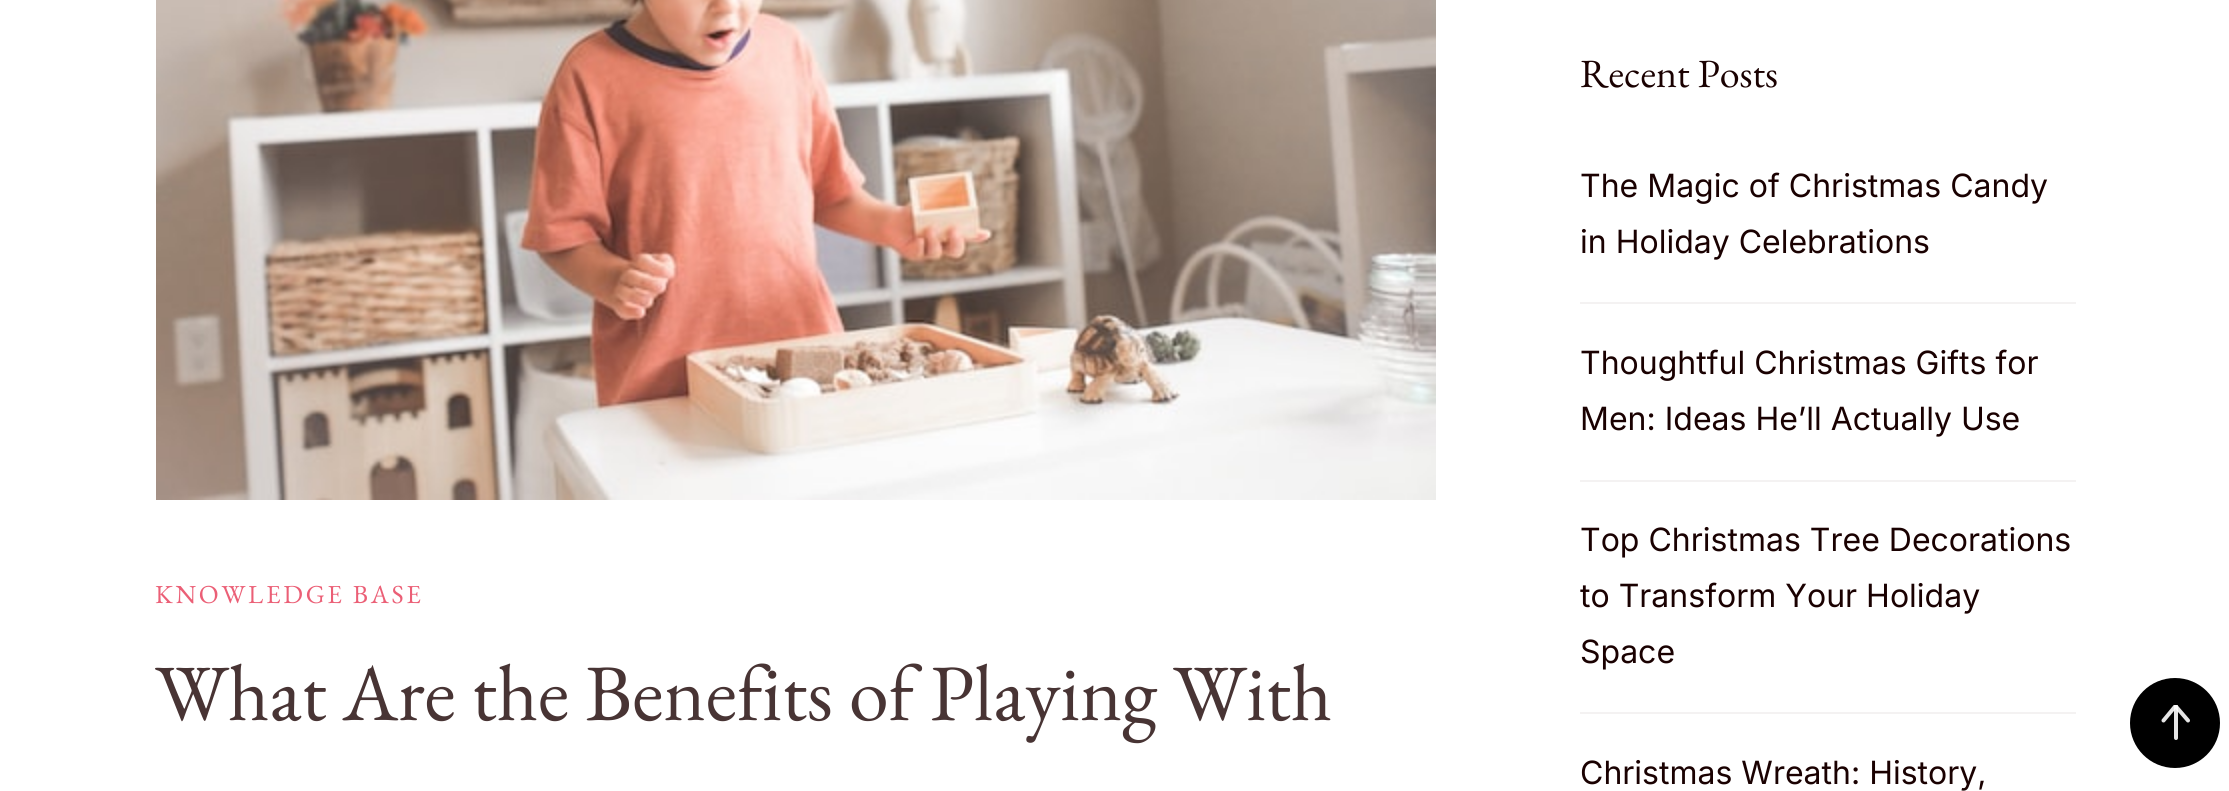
import math
import cairo

surface = cairo.ImageSurface(cairo.FORMAT_RGB24, 2229, 791)
ctx = cairo.Context(surface)
options = cairo.FontOptions()
options.set_hint_metrics(cairo.HINT_METRICS_OFF)
options.set_hint_style(cairo.HINT_STYLE_NONE)
ctx.set_font_options(options)
ctx.set_miter_limit(4)


def spaced_text(x, y, s, letter, word):
    ctx.move_to(x, y)
    for ch in s:
        ctx.show_text(ch)
        ctx.rel_move_to(letter + word * (ch == ' '), 0)


def picture(path, x, y, w, h):
    ctx.save()
    ctx.set_source_surface(cairo.ImageSurface.create_from_png(path), x, y)
    ctx.rectangle(x, y, w, h)
    ctx.fill()
    ctx.restore()


ctx.set_source_rgb(1, 1, 1)
ctx.paint()
picture("img1.png", 156, 0, 1280, 500)
ctx.select_font_face("EB Garamond")
ctx.set_font_size(26)
ctx.set_source_rgb(0.918, 0.373, 0.463)
spaced_text(155, 603, "KNOWLEDGE BASE", 2.75, 0)
ctx.set_font_size(80)
ctx.set_source_rgb(0.282, 0.204, 0.204)
ctx.move_to(155, 720)
ctx.show_text("What Are the Benefits of Playing With")
ctx.set_font_size(40)
ctx.set_source_rgb(0.102, 0.004, 0.004)
ctx.move_to(1580, 87)
ctx.show_text("Recent Posts")
ctx.set_source_rgb(0.957, 0.949, 0.949)
ctx.rectangle(1580, 302, 496, 2)
ctx.fill()
ctx.select_font_face("Inter")
ctx.set_font_size(32)
ctx.set_source_rgb(0.102, 0.004, 0.004)
ctx.move_to(1580, 197)
ctx.show_text("The Magic of Christmas Candy")
ctx.move_to(1580, 253)
ctx.show_text("in Holiday Celebrations")
ctx.set_source_rgb(0.957, 0.949, 0.949)
ctx.rectangle(1580, 480, 496, 2)
ctx.fill()
ctx.set_source_rgb(0.102, 0.004, 0.004)
ctx.move_to(1580, 374)
ctx.show_text("Thoughtful Christmas Gifts for")
ctx.move_to(1580, 430)
ctx.show_text("Men: Ideas He’ll Actually Use")
ctx.set_source_rgb(0.957, 0.949, 0.949)
ctx.rectangle(1580, 712, 496, 2)
ctx.fill()
ctx.set_source_rgb(0.102, 0.004, 0.004)
ctx.move_to(1580, 551)
ctx.show_text("Top Christmas Tree Decorations")
ctx.move_to(1580, 607)
ctx.show_text("to Transform Your Holiday")
ctx.move_to(1580, 663)
ctx.show_text("Space")
ctx.move_to(1580, 784)
ctx.show_text("Christmas Wreath: History,")
ctx.set_source_rgb(0, 0, 0)
ctx.new_path()
ctx.arc(2175, 723, 45, 0, 2 * math.pi)
ctx.fill()
ctx.save()
ctx.new_path()
ctx.move_to(2157, 741)
ctx.line_to(2157, 705)
ctx.line_to(2193, 705)
ctx.line_to(2193, 741)
ctx.close_path()
ctx.clip()
ctx.new_path()
ctx.move_to(2176, 738)
ctx.line_to(2176, 706.5)
ctx.set_source_rgb(0.902, 0.902, 0.902)
ctx.set_line_width(4)
ctx.set_line_cap(cairo.LINE_CAP_ROUND)
ctx.stroke()
ctx.new_path()
ctx.move_to(2163.5, 720.5)
ctx.line_to(2175.5, 706)
ctx.line_to(2188, 720.5)
ctx.set_source_rgba(1, 1, 1, 0.9)
ctx.set_line_join(cairo.LINE_JOIN_ROUND)
ctx.stroke()
ctx.restore()
surface.write_to_png("page.png")
